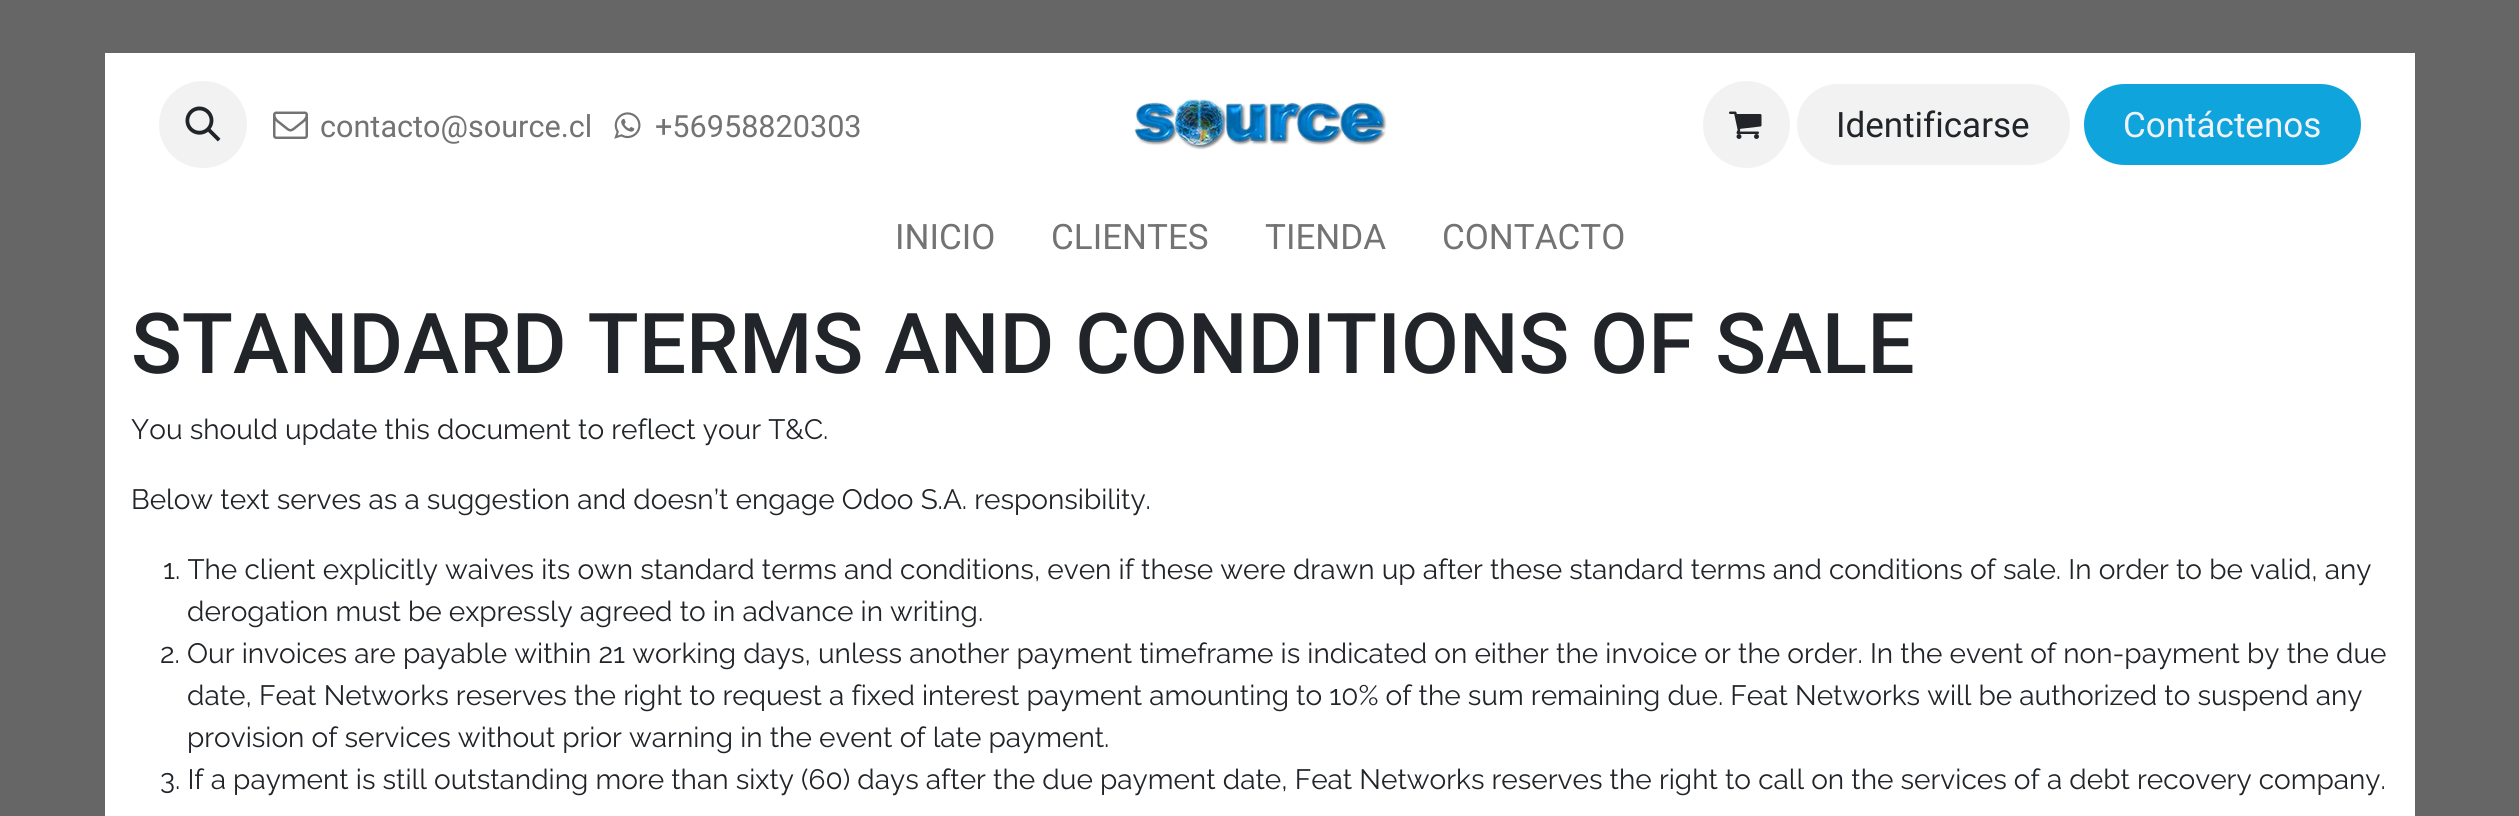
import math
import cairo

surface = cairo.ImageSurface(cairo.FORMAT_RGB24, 2519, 816)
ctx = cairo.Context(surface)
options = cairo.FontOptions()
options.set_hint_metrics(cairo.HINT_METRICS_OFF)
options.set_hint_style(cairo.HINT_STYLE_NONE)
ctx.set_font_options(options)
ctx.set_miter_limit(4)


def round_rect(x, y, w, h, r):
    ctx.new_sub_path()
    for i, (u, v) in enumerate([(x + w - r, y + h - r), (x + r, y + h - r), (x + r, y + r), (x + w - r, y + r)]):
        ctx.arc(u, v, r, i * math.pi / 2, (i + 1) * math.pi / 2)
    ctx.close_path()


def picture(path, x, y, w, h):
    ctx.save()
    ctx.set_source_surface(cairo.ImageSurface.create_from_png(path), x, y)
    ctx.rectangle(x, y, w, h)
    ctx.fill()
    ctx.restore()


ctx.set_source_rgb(0.4, 0.4, 0.4)
ctx.paint()
ctx.set_source_rgb(1, 1, 1)
ctx.rectangle(105, 53, 2310, 763)
ctx.fill()
ctx.set_source_rgb(0.949, 0.949, 0.949)
round_rect(159, 81, 88, 87, 43.5)
ctx.fill()
picture("img1.png", 185, 106, 36, 36)
picture("img2.png", 273, 111, 35, 28)
ctx.select_font_face("Roboto")
ctx.set_font_size(30.6)
ctx.set_source_rgb(0.451, 0.451, 0.451)
ctx.move_to(320, 137)
ctx.show_text("contacto@source.cl")
picture("img3.png", 614, 112, 27, 27)
ctx.move_to(655, 137)
ctx.show_text("+56958820303")
picture("img4.png", 1134, 99, 253, 51)
ctx.set_source_rgb(0.949, 0.949, 0.949)
ctx.arc(1746.5, 124.5, 43.5, 0, 2 * math.pi)
ctx.fill()
picture("img5.png", 1729, 111, 33, 28)
round_rect(1797, 84, 273, 81, 40.5)
ctx.fill()
ctx.set_font_size(35)
ctx.set_source_rgb(0.129, 0.145, 0.161)
ctx.move_to(1836, 137)
ctx.show_text("Identificarse")
ctx.set_source_rgb(0.063, 0.643, 0.863)
round_rect(2085, 85, 275, 79, 39.5)
ctx.fill_preserve()
ctx.stroke()
ctx.set_source_rgb(0.941, 0.949, 0.961)
ctx.move_to(2123, 137)
ctx.show_text("Contáctenos")
ctx.set_source_rgb(0.451, 0.451, 0.451)
ctx.move_to(895, 249)
ctx.show_text("INICIO")
ctx.move_to(1051, 249)
ctx.show_text("CLIENTES")
ctx.move_to(1265, 249)
ctx.show_text("TIENDA")
ctx.move_to(1442, 249)
ctx.show_text("CONTACTO")
ctx.select_font_face("Roboto Medium")
ctx.set_font_size(84)
ctx.set_source_rgb(0.129, 0.145, 0.161)
ctx.move_to(131, 373)
ctx.show_text("STANDARD TERMS AND CONDITIONS OF SALE")
ctx.select_font_face("Raleway")
ctx.set_font_size(28)
ctx.move_to(131, 439)
ctx.show_text("You should update this document to reflect your T&C.")
ctx.move_to(131, 509)
ctx.show_text("Below text serves as a suggestion and doesn’t engage Odoo S.A. responsibility.")
ctx.move_to(163, 579)
ctx.show_text("1. The client explicitly waives its own standard terms and conditions, even if these were drawn up after these standard terms and conditions of sale. In order to be valid, any")
ctx.move_to(187, 621)
ctx.show_text("derogation must be expressly agreed to in advance in writing.")
ctx.move_to(160, 663)
ctx.show_text("2. Our invoices are payable within 21 working days, unless another payment timeframe is indicated on either the invoice or the order. In the event of non-payment by the due")
ctx.move_to(187, 705)
ctx.show_text("date, Feat Networks reserves the right to request a fixed interest payment amounting to 10% of the sum remaining due. Feat Networks will be authorized to suspend any")
ctx.move_to(187, 747)
ctx.show_text("provision of services without prior warning in the event of late payment.")
ctx.move_to(160, 789)
ctx.show_text("3. If a payment is still outstanding more than sixty (60) days after the due payment date, Feat Networks reserves the right to call on the services of a debt recovery company.")
surface.write_to_png("page.png")
